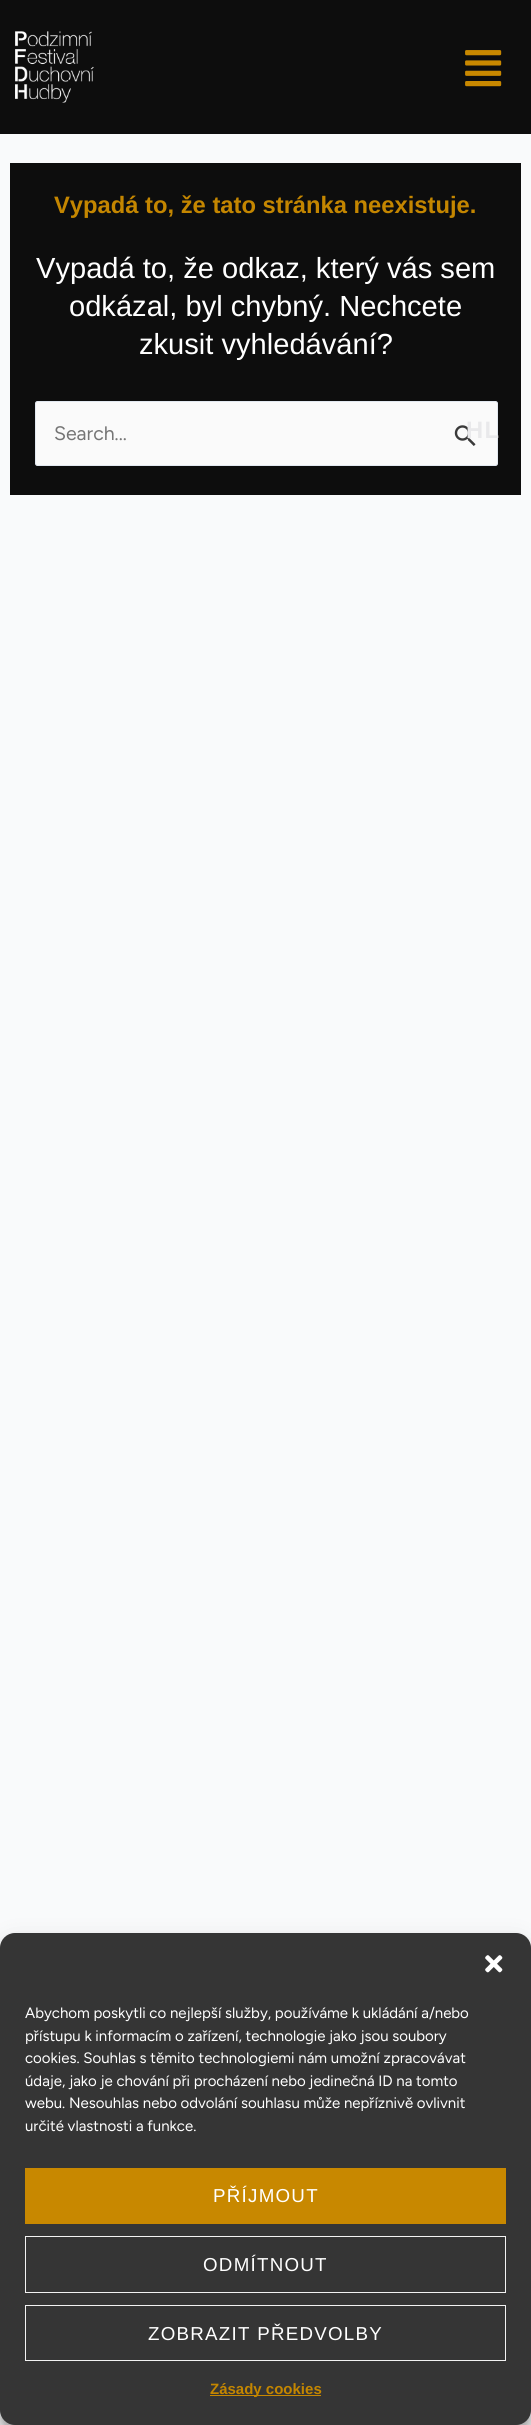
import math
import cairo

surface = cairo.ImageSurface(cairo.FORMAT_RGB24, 531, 2425)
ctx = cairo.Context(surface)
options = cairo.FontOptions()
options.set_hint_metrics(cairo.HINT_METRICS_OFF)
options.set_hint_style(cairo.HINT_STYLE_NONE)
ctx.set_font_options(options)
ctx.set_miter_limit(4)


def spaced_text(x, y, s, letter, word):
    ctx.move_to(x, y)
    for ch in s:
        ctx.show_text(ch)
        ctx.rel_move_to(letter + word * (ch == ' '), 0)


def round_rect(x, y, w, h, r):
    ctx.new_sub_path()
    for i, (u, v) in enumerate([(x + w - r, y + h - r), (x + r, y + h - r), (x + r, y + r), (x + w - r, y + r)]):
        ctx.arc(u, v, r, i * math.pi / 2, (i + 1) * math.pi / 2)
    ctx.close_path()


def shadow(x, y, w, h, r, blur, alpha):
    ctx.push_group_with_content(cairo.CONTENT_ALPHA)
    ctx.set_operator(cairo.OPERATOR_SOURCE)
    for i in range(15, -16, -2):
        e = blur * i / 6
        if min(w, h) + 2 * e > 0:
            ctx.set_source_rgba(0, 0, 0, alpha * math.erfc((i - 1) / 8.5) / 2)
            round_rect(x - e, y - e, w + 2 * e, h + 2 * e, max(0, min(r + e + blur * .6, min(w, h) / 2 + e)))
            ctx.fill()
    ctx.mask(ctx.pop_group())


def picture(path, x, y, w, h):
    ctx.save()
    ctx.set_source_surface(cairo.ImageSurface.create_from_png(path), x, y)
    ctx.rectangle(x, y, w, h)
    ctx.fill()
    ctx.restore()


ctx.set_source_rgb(0.976, 0.98, 0.984)
ctx.paint()
ctx.set_source_rgb(0.051, 0.051, 0.051)
ctx.rectangle(0, 0, 531, 134)
ctx.fill()
picture("img1.png", 15, 31, 79, 72)
picture("img2.png", 465, 50, 37, 37)
ctx.rectangle(10, 163, 511, 332)
ctx.fill()
ctx.select_font_face("Liberation Sans", cairo.FONT_SLANT_NORMAL, cairo.FONT_WEIGHT_BOLD)
ctx.set_font_size(23.75)
ctx.set_source_rgb(0.769, 0.525, 0)
ctx.move_to(54, 213)
ctx.show_text("Vypadá to, že tato stránka neexistuje.")
ctx.select_font_face("Liberation Sans")
ctx.set_font_size(29.1)
ctx.set_source_rgb(1, 1, 1)
ctx.move_to(36, 278)
ctx.show_text("Vypadá to, že odkaz, který vás sem")
ctx.move_to(69, 316)
ctx.show_text("odkázal, byl chybný. Nechcete")
ctx.move_to(139, 354)
ctx.show_text("zkusit vyhledávání?")
ctx.set_source_rgb(0.98, 0.98, 0.98)
round_rect(35.5, 401.5, 462, 64, 2)
ctx.fill_preserve()
ctx.set_source_rgb(0.886, 0.91, 0.941)
ctx.set_line_width(1)
ctx.stroke()
ctx.select_font_face("Figtree Light")
ctx.set_font_size(19.5)
ctx.set_source_rgb(0.459, 0.459, 0.459)
ctx.move_to(54, 440)
ctx.show_text("Search...")
picture("img3.png", 454, 425, 22, 21)
ctx.select_font_face("Liberation Sans", cairo.FONT_SLANT_NORMAL, cairo.FONT_WEIGHT_BOLD)
ctx.set_font_size(23.75)
ctx.set_source_rgb(0.914, 0.914, 0.918)
spaced_text(466, 438, "HL", 1.25, 0)
ctx.set_source_rgb(0, 0, 0)
shadow(0, 1940, 531, 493, 15, 4, 0.23)
shadow(0, 1945, 531, 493, 15, 12.5, 0.19)
ctx.set_source_rgb(0.208, 0.208, 0.208)
round_rect(0, 1933, 531, 492, 15)
ctx.fill()
picture("img4.png", 485, 1955, 18, 18)
ctx.select_font_face("Figtree Light")
ctx.set_font_size(15)
ctx.set_source_rgb(1, 1, 1)
ctx.move_to(25, 2018)
ctx.show_text("Abychom poskytli co nejlepší služby, používáme k ukládání a/nebo")
ctx.move_to(25, 2041)
ctx.show_text("přístupu k informacím o zařízení, technologie jako jsou soubory")
ctx.move_to(25, 2063)
ctx.show_text("cookies. Souhlas s těmito technologiemi nám umožní zpracovávat")
ctx.move_to(25, 2086)
ctx.show_text("údaje, jako je chování při procházení nebo jedinečná ID na tomto")
ctx.move_to(25, 2108)
ctx.show_text("webu. Nesouhlas nebo odvolání souhlasu může nepříznivě ovlivnit")
ctx.move_to(25, 2131)
ctx.show_text("určité vlastnosti a funkce.")
ctx.set_source_rgb(0.784, 0.533, 0)
ctx.rectangle(25, 2168, 481, 56)
ctx.fill()
ctx.select_font_face("Liberation Sans")
ctx.set_font_size(18.75)
ctx.set_source_rgb(1, 1, 1)
spaced_text(213, 2202, "PŘÍJMOUT", 1.25, 0)
ctx.rectangle(25.5, 2236.5, 480, 56)
ctx.set_source_rgb(0.949, 0.949, 0.949)
ctx.stroke()
ctx.set_source_rgb(1, 1, 1)
spaced_text(203, 2271, "ODMÍTNOUT", 1.25, 0)
ctx.rectangle(25.5, 2305.5, 480, 55)
ctx.set_source_rgb(0.949, 0.949, 0.949)
ctx.stroke()
ctx.set_source_rgb(1, 1, 1)
spaced_text(148, 2340, "ZOBRAZIT PŘEDVOLBY", 1.25, 0)
ctx.set_source_rgb(0.784, 0.533, 0)
ctx.rectangle(210, 2395, 111, 1)
ctx.fill()
ctx.select_font_face("Liberation Sans", cairo.FONT_SLANT_NORMAL, cairo.FONT_WEIGHT_BOLD)
ctx.set_font_size(15)
ctx.set_source_rgb(0.769, 0.525, 0)
ctx.move_to(210, 2394)
ctx.show_text("Zásady cookies")
surface.write_to_png("page.png")
